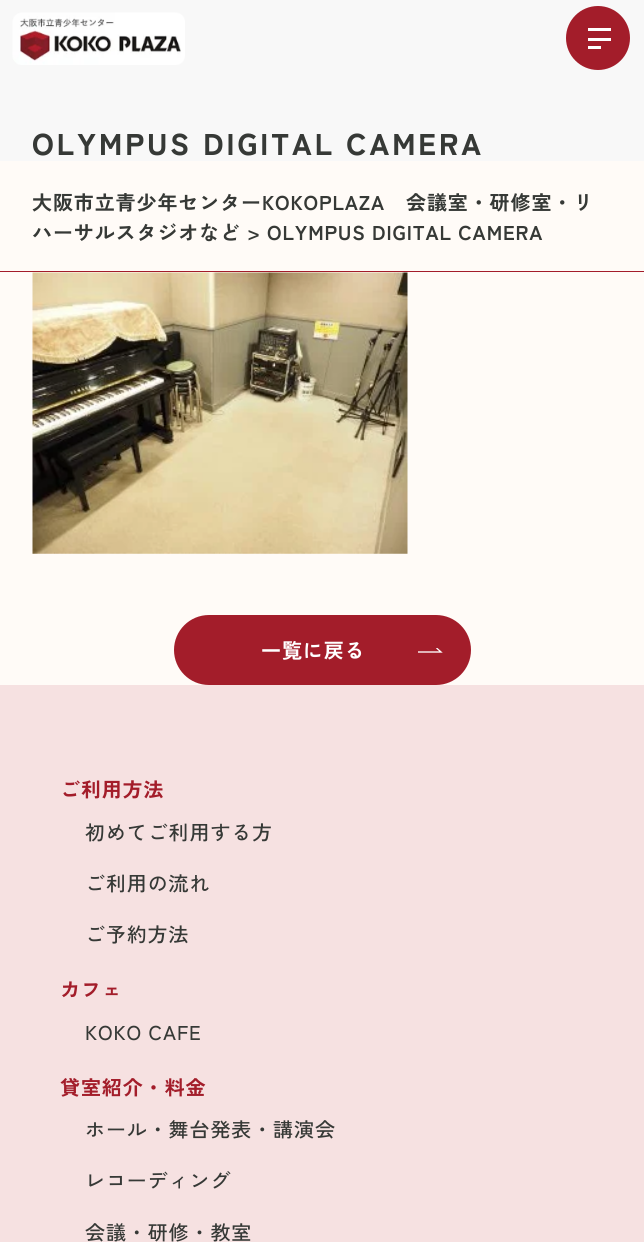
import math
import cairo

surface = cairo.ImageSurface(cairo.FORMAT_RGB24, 644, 1242)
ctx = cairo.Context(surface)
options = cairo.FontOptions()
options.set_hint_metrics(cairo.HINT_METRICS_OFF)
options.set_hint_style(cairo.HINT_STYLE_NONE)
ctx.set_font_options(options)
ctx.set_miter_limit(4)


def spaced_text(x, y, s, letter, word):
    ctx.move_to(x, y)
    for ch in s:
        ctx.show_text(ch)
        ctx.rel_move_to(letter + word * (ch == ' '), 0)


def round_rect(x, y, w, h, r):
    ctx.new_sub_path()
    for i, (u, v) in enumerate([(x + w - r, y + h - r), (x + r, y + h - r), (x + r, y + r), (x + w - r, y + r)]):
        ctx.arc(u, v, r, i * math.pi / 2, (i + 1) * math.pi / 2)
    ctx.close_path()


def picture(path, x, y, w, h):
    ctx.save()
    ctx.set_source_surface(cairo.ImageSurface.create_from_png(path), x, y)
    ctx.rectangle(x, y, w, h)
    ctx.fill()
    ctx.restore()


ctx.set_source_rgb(1, 0.984, 0.965)
ctx.paint()
ctx.set_source_rgb(0.969, 0.969, 0.969)
ctx.rectangle(0, 0, 644, 161)
ctx.fill()
picture("img1.png", 12, 12, 173, 53)
ctx.set_source_rgb(0.639, 0.114, 0.165)
ctx.arc(598, 38, 32, 0, 2 * math.pi)
ctx.fill()
ctx.set_source_rgb(1, 1, 1)
ctx.rectangle(588, 28, 23, 3)
ctx.fill()
ctx.rectangle(588, 38, 23, 3)
ctx.fill()
ctx.rectangle(588, 46, 13, 3)
ctx.fill()
ctx.select_font_face("Zen Kaku Gothic New Black")
ctx.set_font_size(30)
ctx.set_source_rgb(0.212, 0.224, 0.212)
spaced_text(32, 155, "OLYMPUS DIGITAL CAMERA", 3, 0)
ctx.set_source_rgb(0.639, 0.11, 0.165)
ctx.rectangle(0, 271, 644, 1)
ctx.fill()
ctx.select_font_face("Zen Kaku Gothic New", cairo.FONT_SLANT_NORMAL, cairo.FONT_WEIGHT_BOLD)
ctx.set_font_size(20)
ctx.set_source_rgb(0.212, 0.224, 0.212)
spaced_text(32, 210, "大阪市立青少年センターKOKOPLAZA　会議室・研修室・リ", 0.9, 0)
spaced_text(32, 240, "ハーサルスタジオなど > OLYMPUS DIGITAL CAMERA", 0.9, 0)
picture("img2.png", 32, 272, 376, 282)
ctx.set_source_rgb(0.639, 0.114, 0.165)
round_rect(176, 617, 293, 66, 33)
ctx.fill_preserve()
ctx.set_line_width(4)
ctx.stroke()
ctx.set_source_rgb(1, 1, 1)
spaced_text(261, 658, "一覧に戻る", 0.9, 0)
ctx.save()
ctx.rectangle(418, 648, 25, 5)
ctx.clip()
ctx.new_path()
ctx.move_to(417.5, 652)
ctx.line_to(441, 652)
ctx.line_to(436.5, 648)
ctx.set_line_width(1.3)
ctx.stroke()
ctx.restore()
ctx.set_source_rgb(0.961, 0.882, 0.882)
ctx.rectangle(0, 685, 644, 557)
ctx.fill()
ctx.set_source_rgb(0.639, 0.114, 0.165)
spaced_text(60, 797, "ご利用方法", 0.9, 0)
ctx.select_font_face("Zen Kaku Gothic New Medium")
ctx.set_source_rgb(0.212, 0.224, 0.212)
spaced_text(85, 840, "初めてご利用する方", 0.9, 0)
spaced_text(85, 891, "ご利用の流れ", 0.9, 0)
spaced_text(85, 942, "ご予約方法", 0.9, 0)
ctx.select_font_face("Zen Kaku Gothic New", cairo.FONT_SLANT_NORMAL, cairo.FONT_WEIGHT_BOLD)
ctx.set_source_rgb(0.639, 0.114, 0.165)
spaced_text(60, 997, "カフェ", 0.9, 0)
ctx.select_font_face("Zen Kaku Gothic New Medium")
ctx.set_source_rgb(0.212, 0.224, 0.212)
spaced_text(85, 1040, "KOKO CAFE", 0.9, 0)
ctx.select_font_face("Zen Kaku Gothic New", cairo.FONT_SLANT_NORMAL, cairo.FONT_WEIGHT_BOLD)
ctx.set_source_rgb(0.639, 0.114, 0.165)
spaced_text(60, 1095, "貸室紹介・料金", 0.9, 0)
ctx.select_font_face("Zen Kaku Gothic New Medium")
ctx.set_source_rgb(0.212, 0.224, 0.212)
spaced_text(85, 1137, "ホール・舞台発表・講演会", 0.9, 0)
spaced_text(85, 1188, "レコーディング", 0.9, 0)
spaced_text(85, 1240, "会議・研修・教室", 0.9, 0)
surface.write_to_png("page.png")
